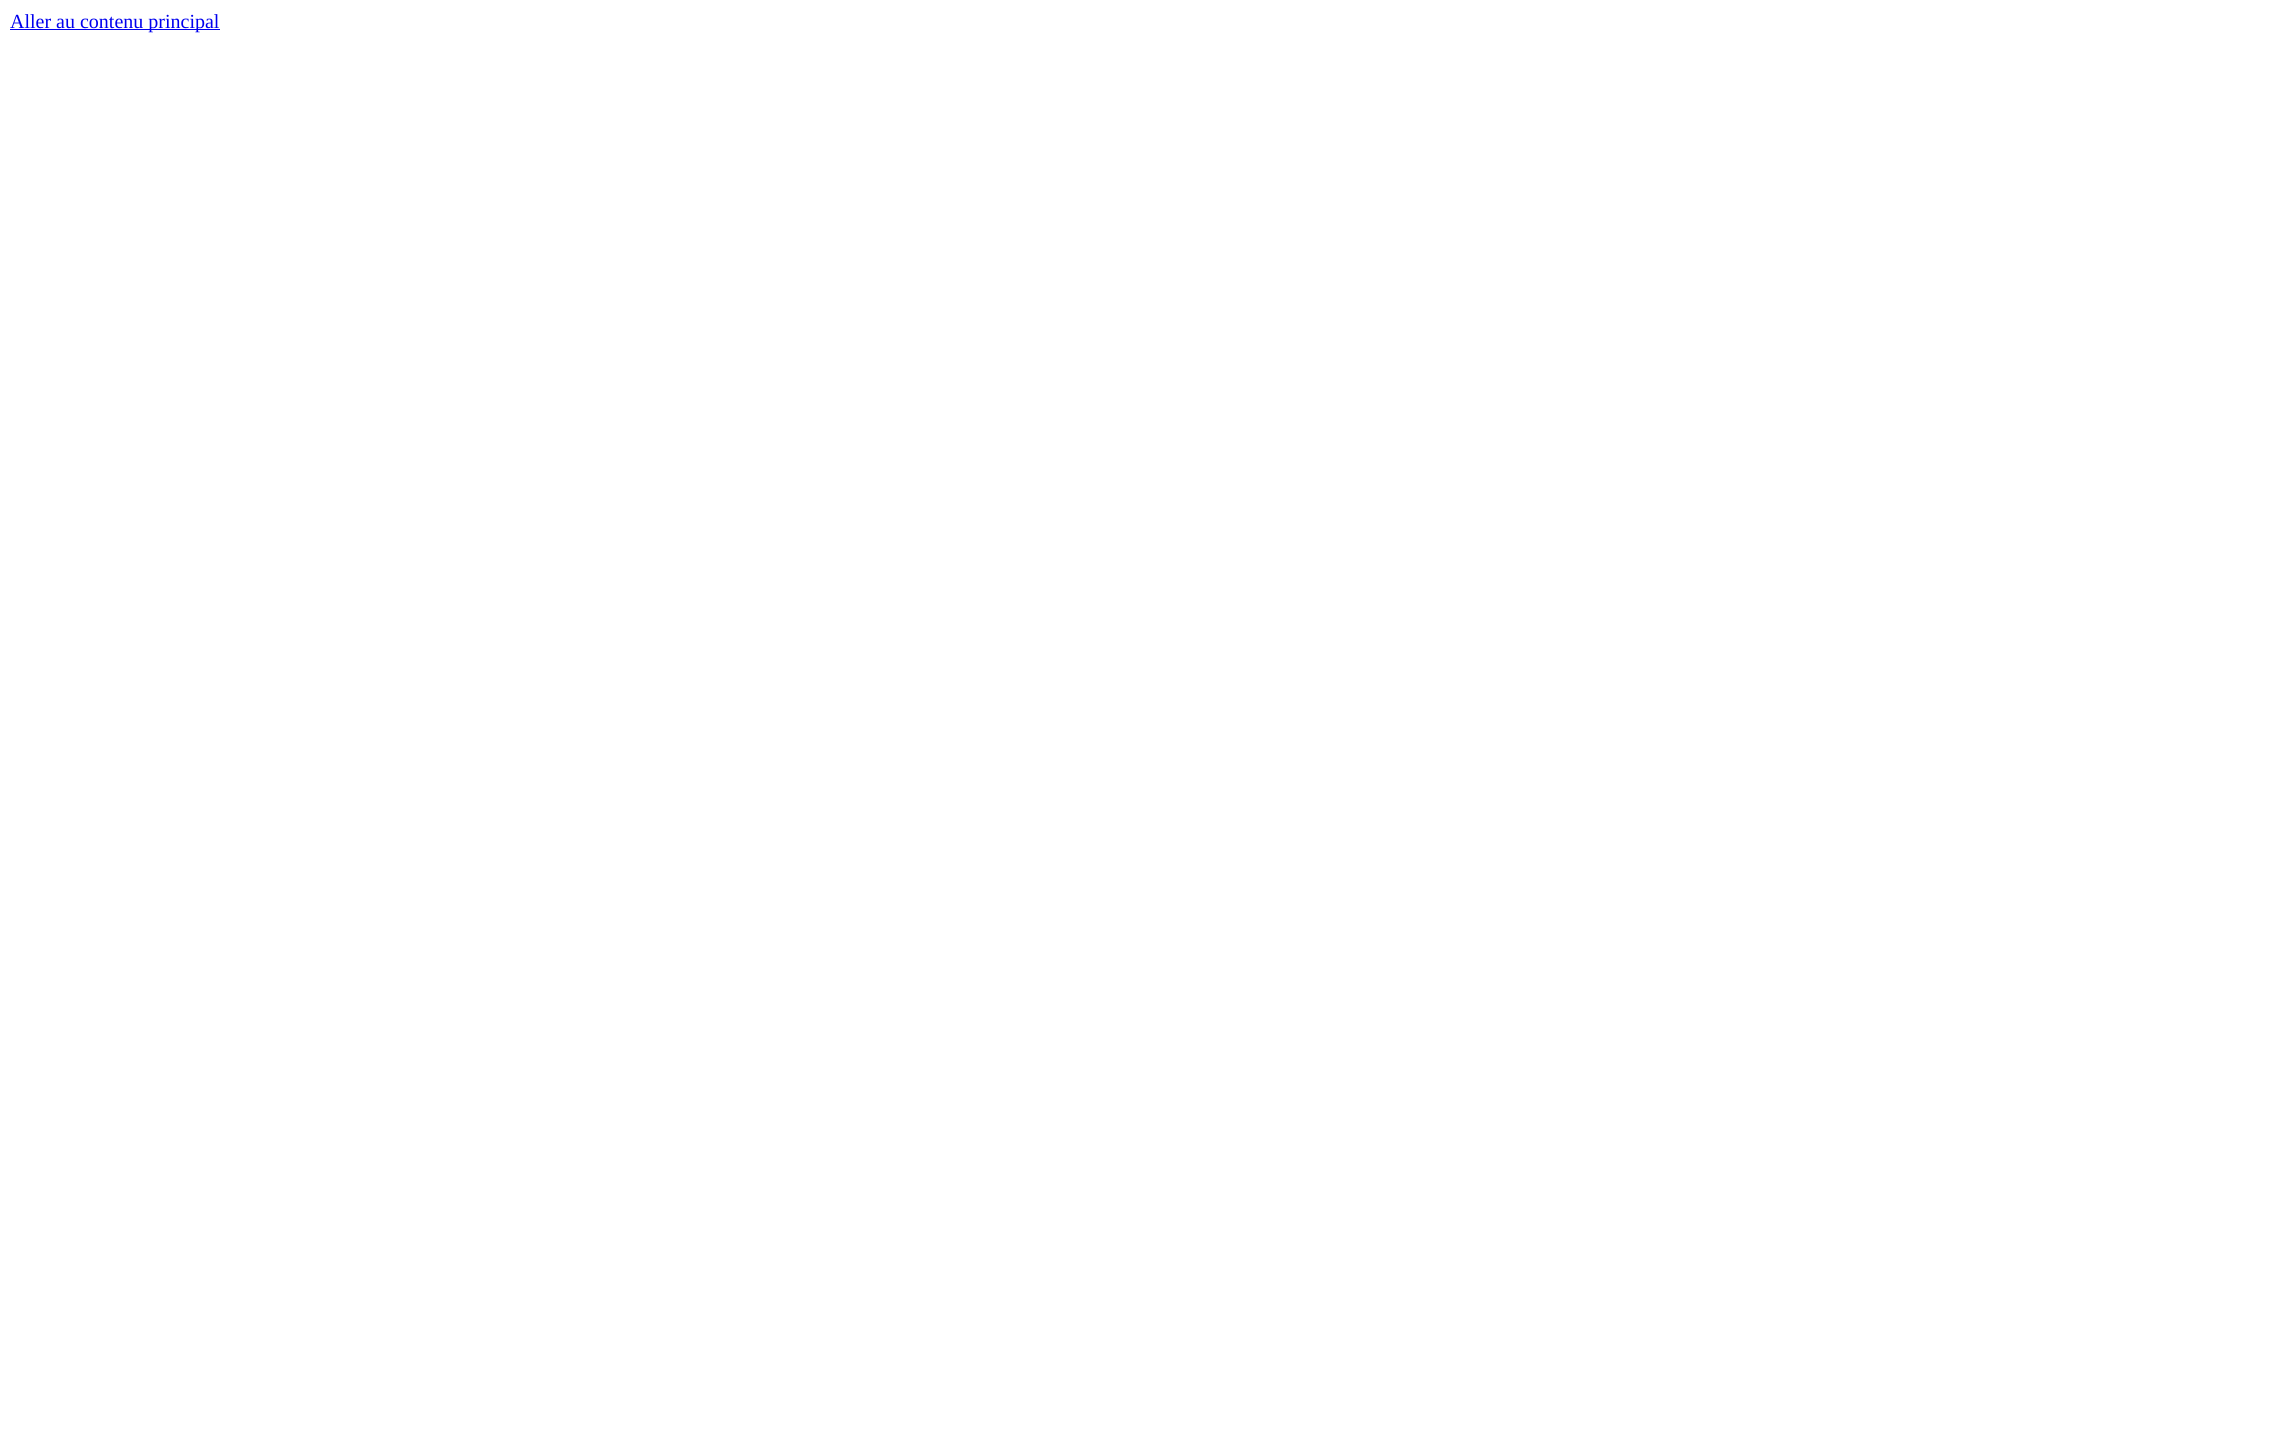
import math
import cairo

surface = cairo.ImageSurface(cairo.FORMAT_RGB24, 2293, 1446)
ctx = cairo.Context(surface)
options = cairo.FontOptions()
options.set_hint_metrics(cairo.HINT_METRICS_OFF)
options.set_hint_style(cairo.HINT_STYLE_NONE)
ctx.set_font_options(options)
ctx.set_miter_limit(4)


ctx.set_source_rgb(1, 1, 1)
ctx.paint()
ctx.set_source_rgb(0, 0, 0.933)
ctx.rectangle(10, 29, 210, 1)
ctx.fill()
ctx.select_font_face("Liberation Serif")
ctx.set_font_size(20)
ctx.move_to(10, 28)
ctx.show_text("Aller au contenu principal")
surface.write_to_png("page.png")
